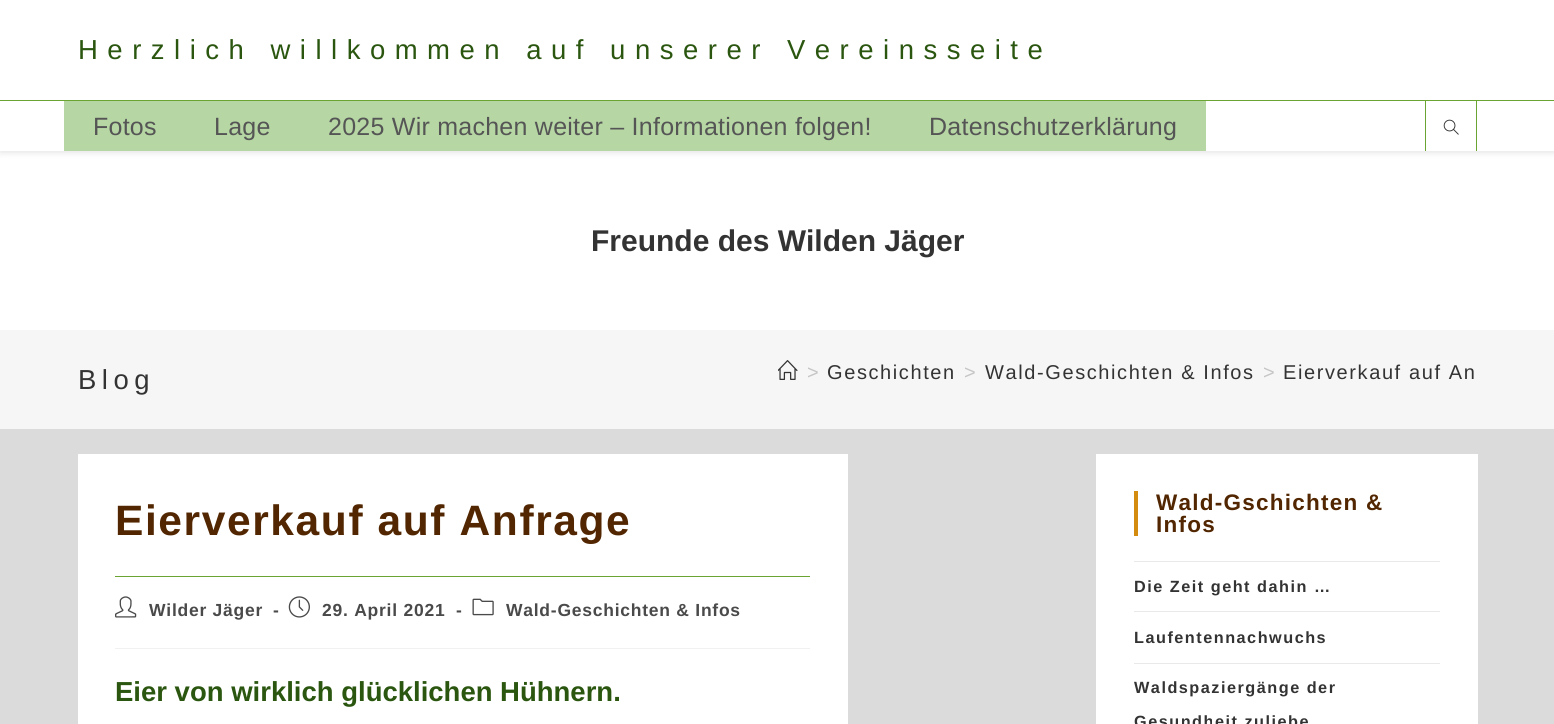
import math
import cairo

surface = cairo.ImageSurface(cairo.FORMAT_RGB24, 1554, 724)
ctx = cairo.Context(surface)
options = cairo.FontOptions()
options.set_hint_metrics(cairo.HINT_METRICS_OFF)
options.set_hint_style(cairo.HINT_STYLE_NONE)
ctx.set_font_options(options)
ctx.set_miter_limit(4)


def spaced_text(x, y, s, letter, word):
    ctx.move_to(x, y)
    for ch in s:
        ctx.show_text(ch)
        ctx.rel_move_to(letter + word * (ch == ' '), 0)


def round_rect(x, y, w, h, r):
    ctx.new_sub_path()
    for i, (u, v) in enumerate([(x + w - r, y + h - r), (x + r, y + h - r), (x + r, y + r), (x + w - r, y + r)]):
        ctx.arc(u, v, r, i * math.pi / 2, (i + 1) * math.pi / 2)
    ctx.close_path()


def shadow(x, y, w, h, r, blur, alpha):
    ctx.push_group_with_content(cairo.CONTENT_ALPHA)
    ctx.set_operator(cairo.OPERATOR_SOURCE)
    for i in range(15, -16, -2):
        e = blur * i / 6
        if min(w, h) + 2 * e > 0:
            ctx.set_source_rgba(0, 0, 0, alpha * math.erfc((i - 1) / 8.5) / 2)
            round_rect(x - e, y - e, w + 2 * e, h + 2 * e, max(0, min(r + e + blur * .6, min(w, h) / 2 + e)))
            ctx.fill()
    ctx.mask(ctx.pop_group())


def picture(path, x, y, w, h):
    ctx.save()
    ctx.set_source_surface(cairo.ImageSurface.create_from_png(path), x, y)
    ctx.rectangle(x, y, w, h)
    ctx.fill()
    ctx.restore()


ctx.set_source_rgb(0.859, 0.859, 0.859)
ctx.paint()
ctx.set_source_rgb(1, 1, 1)
ctx.rectangle(0, 151, 1554, 179)
ctx.fill()
ctx.set_source_rgb(0, 0, 0)
shadow(0, 103, 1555, 50, 0, 3, 0.1)
ctx.set_source_rgb(1, 1, 1)
ctx.rectangle(0, 0, 1554, 100)
ctx.fill()
ctx.set_source_rgb(0.416, 0.647, 0.2)
ctx.rectangle(0, 100, 1554, 1)
ctx.fill()
ctx.select_font_face("Liberation Sans")
ctx.set_font_size(27.5)
ctx.set_source_rgb(0.165, 0.337, 0.059)
spaced_text(78, 59, "Herzlich willkommen auf unserer Vereinsseite", 9.5, 0)
ctx.set_source_rgb(1, 1, 1)
ctx.rectangle(0, 101, 1554, 50)
ctx.fill()
ctx.set_source_rgb(0.714, 0.839, 0.643)
ctx.rectangle(64, 101, 1142, 50)
ctx.fill()
ctx.set_font_size(25)
ctx.set_source_rgb(0.333, 0.333, 0.333)
spaced_text(93, 135, "Fotos", 0.25, 0)
spaced_text(214, 135, "Lage", 0.25, 0)
spaced_text(328, 135, "2025 Wir machen weiter – Informationen folgen!", 0.25, 0)
spaced_text(929, 135, "Datenschutzerklärung", 0.25, 0)
ctx.set_source_rgb(0.416, 0.647, 0.2)
ctx.rectangle(1476, 101, 1, 50)
ctx.fill()
ctx.rectangle(1425, 101, 1, 50)
ctx.fill()
picture("img1.png", 1443, 119, 16, 16)
ctx.select_font_face("Liberation Sans", cairo.FONT_SLANT_NORMAL, cairo.FONT_WEIGHT_BOLD)
ctx.set_font_size(30)
ctx.set_source_rgb(0.2, 0.2, 0.2)
ctx.move_to(591, 251)
ctx.show_text("Freunde des Wilden Jäger")
ctx.set_source_rgb(0.961, 0.961, 0.961)
ctx.rectangle(0, 330, 1554, 99)
ctx.fill()
ctx.select_font_face("Liberation Sans")
ctx.set_font_size(27.5)
ctx.set_source_rgb(0.2, 0.2, 0.2)
spaced_text(78, 389, "Blog", 5.5, 0)
picture("img2.png", 778, 360, 20, 20)
ctx.set_font_size(20)
ctx.set_source_rgb(0.776, 0.776, 0.776)
spaced_text(807, 379, ">", 1.6, 0)
ctx.set_source_rgb(0.2, 0.2, 0.2)
spaced_text(827, 379, "Geschichten", 1.6, 0)
ctx.set_source_rgb(0.776, 0.776, 0.776)
spaced_text(964, 379, ">", 1.6, 0)
ctx.set_source_rgb(0.2, 0.2, 0.2)
spaced_text(985, 379, "Wald-Geschichten & Infos", 1.6, 0)
ctx.set_source_rgb(0.776, 0.776, 0.776)
spaced_text(1263, 379, ">", 1.6, 0)
ctx.set_source_rgb(0.2, 0.2, 0.2)
spaced_text(1283, 379, "Eierverkauf auf An", 1.6, 0)
ctx.set_source_rgb(1, 1, 1)
ctx.rectangle(78, 454, 770, 270)
ctx.fill()
ctx.set_source_rgb(0.416, 0.647, 0.2)
ctx.rectangle(115, 576, 695, 1)
ctx.fill()
ctx.select_font_face("Liberation Sans", cairo.FONT_SLANT_NORMAL, cairo.FONT_WEIGHT_BOLD)
ctx.set_font_size(42.5)
ctx.set_source_rgb(0.318, 0.149, 0)
spaced_text(115, 535, "Eierverkauf auf Anfrage", 1.6, 0)
ctx.set_source_rgb(0.945, 0.945, 0.945)
ctx.rectangle(115, 648, 695, 1)
ctx.fill()
picture("img3.png", 115, 596, 22, 22)
ctx.set_font_size(17.5)
ctx.set_source_rgb(0.29, 0.29, 0.29)
spaced_text(149, 616, "Wilder Jäger", 0.75, 0)
spaced_text(273, 616, "-", 0.75, 0)
picture("img4.png", 288, 596, 22, 22)
spaced_text(322, 616, "29. April 2021", 0.75, 0)
spaced_text(456, 616, "-", 0.75, 0)
picture("img5.png", 472, 598, 22, 18)
spaced_text(506, 616, "Wald-Geschichten & Infos", 0.75, 0)
ctx.set_font_size(27.5)
ctx.set_source_rgb(0.165, 0.337, 0.059)
ctx.move_to(115, 701)
ctx.show_text("Eier von wirklich glücklichen Hühnern.")
ctx.set_source_rgb(1, 1, 1)
ctx.rectangle(1096, 454, 382, 270)
ctx.fill()
ctx.set_source_rgb(0.827, 0.549, 0.063)
ctx.rectangle(1134, 491, 4, 45)
ctx.fill()
ctx.set_font_size(22.5)
ctx.set_source_rgb(0.318, 0.149, 0)
spaced_text(1156, 510, "Wald-Gschichten &", 1.25, 0)
spaced_text(1156, 532, "Infos", 1.25, 0)
ctx.set_source_rgb(0.914, 0.914, 0.914)
ctx.rectangle(1134, 561, 306, 1)
ctx.fill()
ctx.rectangle(1134, 611, 306, 1)
ctx.fill()
ctx.set_font_size(16.25)
ctx.set_source_rgb(0.2, 0.2, 0.2)
spaced_text(1134, 592, "Die Zeit geht dahin …", 1.5, 0)
ctx.set_source_rgb(0.914, 0.914, 0.914)
ctx.rectangle(1134, 663, 306, 1)
ctx.fill()
ctx.set_source_rgb(0.2, 0.2, 0.2)
spaced_text(1134, 643, "Laufentennachwuchs", 1.5, 0)
spaced_text(1134, 693, "Waldspaziergänge der", 1.5, 0)
spaced_text(1134, 727, "Gesundheit zuliebe", 1.5, 0)
surface.write_to_png("page.png")
